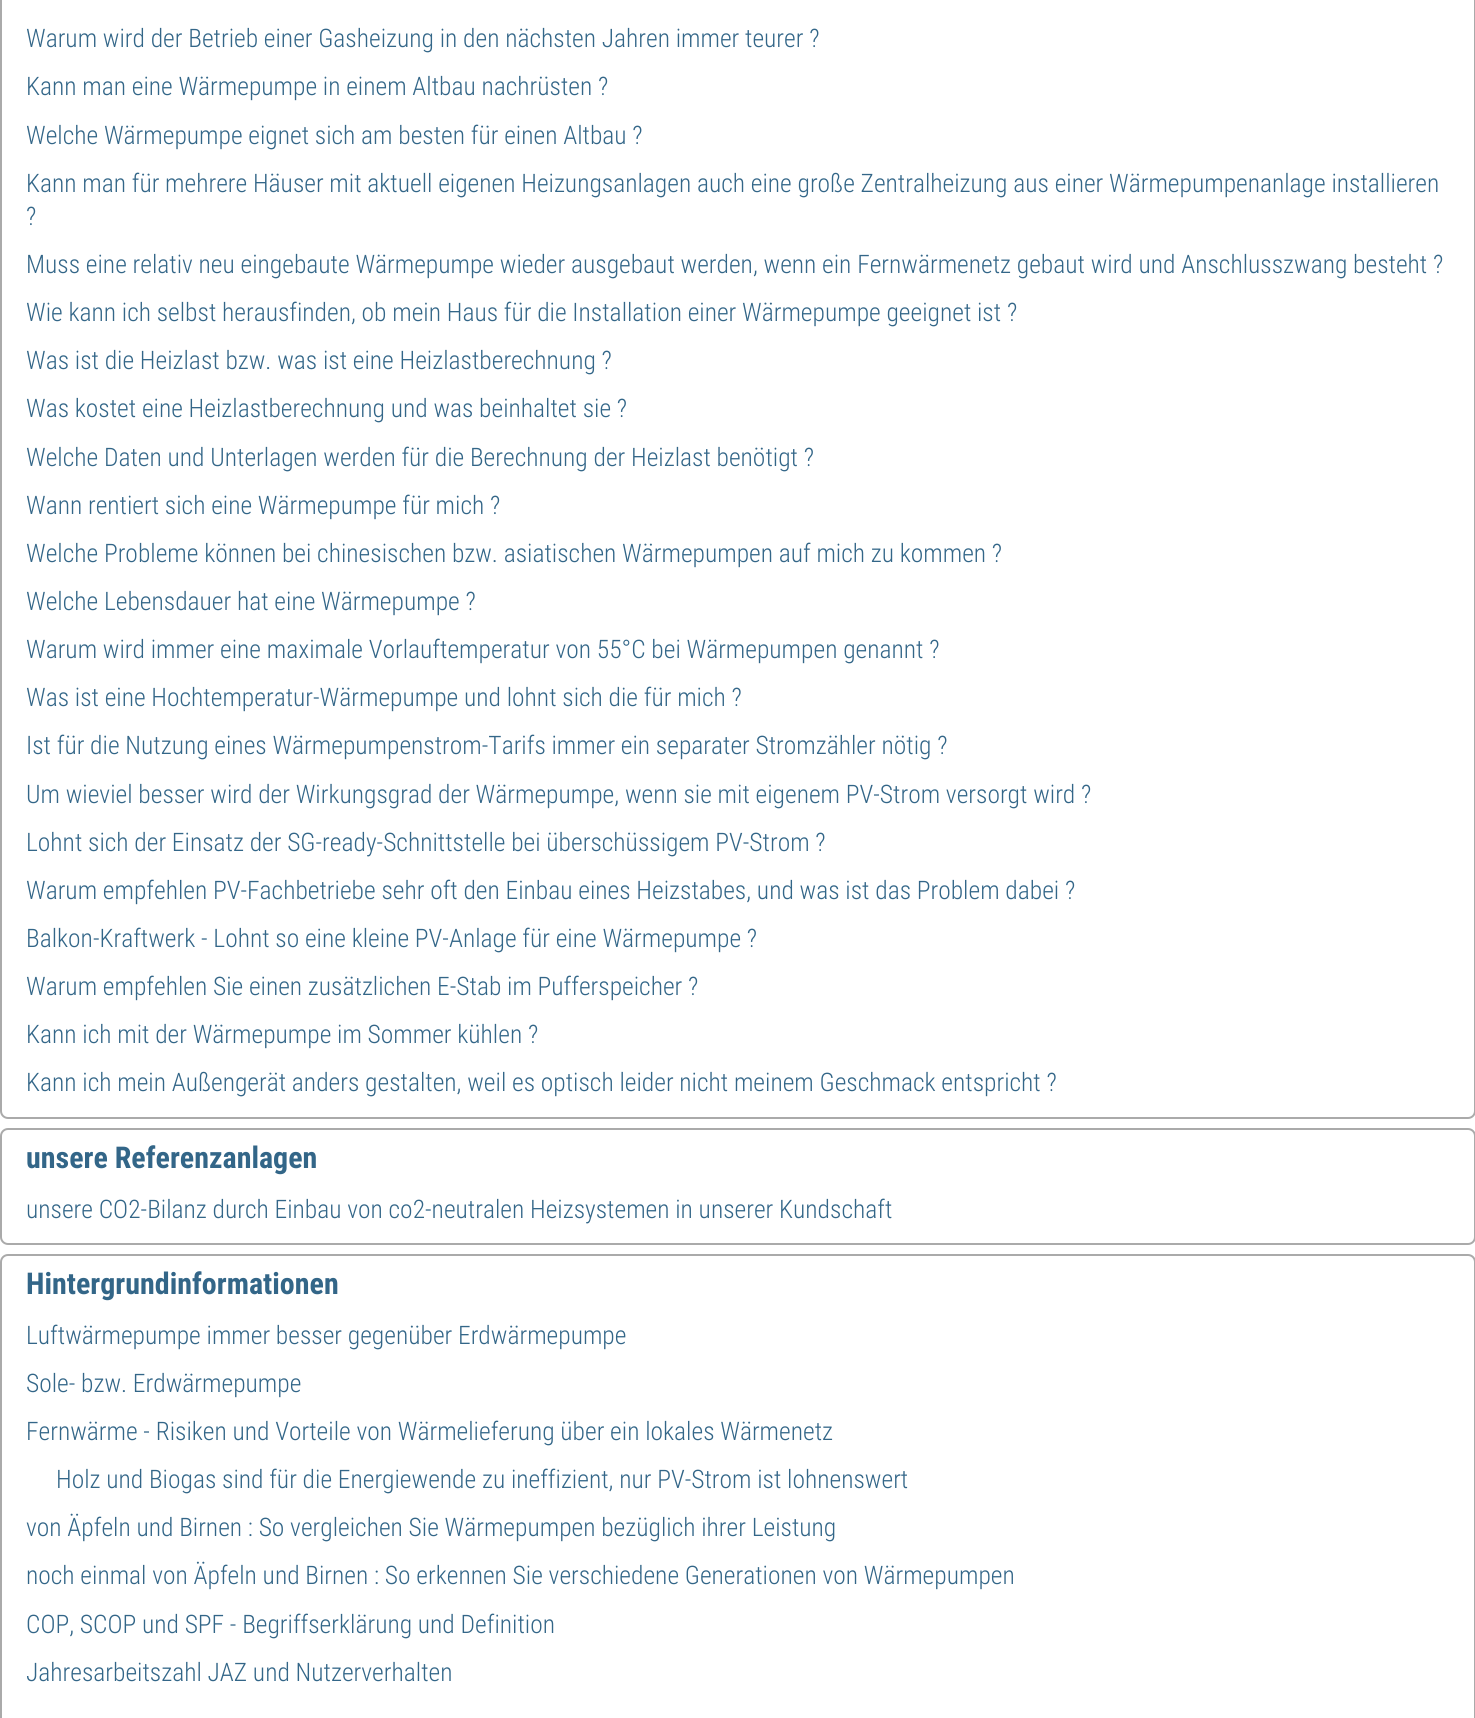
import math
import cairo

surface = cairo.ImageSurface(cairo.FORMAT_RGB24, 1475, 1718)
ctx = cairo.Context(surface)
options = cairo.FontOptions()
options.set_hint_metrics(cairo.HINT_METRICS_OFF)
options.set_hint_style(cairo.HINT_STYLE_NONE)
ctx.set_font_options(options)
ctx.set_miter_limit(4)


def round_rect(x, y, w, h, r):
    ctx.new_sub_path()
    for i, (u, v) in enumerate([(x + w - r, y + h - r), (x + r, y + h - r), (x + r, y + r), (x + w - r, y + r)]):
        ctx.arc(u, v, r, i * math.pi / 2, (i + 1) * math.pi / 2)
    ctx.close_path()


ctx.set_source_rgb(1, 1, 1)
ctx.paint()
round_rect(1, -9, 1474, 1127, 7)
ctx.set_source_rgb(0.667, 0.667, 0.667)
ctx.stroke()
ctx.select_font_face("Roboto Condensed Light")
ctx.set_font_size(25.5)
ctx.set_source_rgb(0.2, 0.4, 0.533)
ctx.move_to(26, 47)
ctx.show_text("Warum wird der Betrieb einer Gasheizung in den nächsten Jahren immer teurer ?")
ctx.move_to(26, 95)
ctx.show_text("Kann man eine Wärmepumpe in einem Altbau nachrüsten ?")
ctx.move_to(26, 144)
ctx.show_text("Welche Wärmepumpe eignet sich am besten für einen Altbau ?")
ctx.move_to(26, 192)
ctx.show_text("Kann man für mehrere Häuser mit aktuell eigenen Heizungsanlagen auch eine große Zentralheizung aus einer Wärmepumpenanlage installieren")
ctx.move_to(26, 225)
ctx.show_text("?")
ctx.move_to(26, 273)
ctx.show_text("Muss eine relativ neu eingebaute Wärmepumpe wieder ausgebaut werden, wenn ein Fernwärmenetz gebaut wird und Anschlusszwang besteht ?")
ctx.move_to(26, 321)
ctx.show_text("Wie kann ich selbst herausfinden, ob mein Haus für die Installation einer Wärmepumpe geeignet ist ?")
ctx.move_to(26, 369)
ctx.show_text("Was ist die Heizlast bzw. was ist eine Heizlastberechnung ?")
ctx.move_to(26, 417)
ctx.show_text("Was kostet eine Heizlastberechnung und was beinhaltet sie ?")
ctx.move_to(26, 466)
ctx.show_text("Welche Daten und Unterlagen werden für die Berechnung der Heizlast benötigt ?")
ctx.move_to(26, 514)
ctx.show_text("Wann rentiert sich eine Wärmepumpe für mich ?")
ctx.move_to(26, 562)
ctx.show_text("Welche Probleme können bei chinesischen bzw. asiatischen Wärmepumpen auf mich zu kommen ?")
ctx.move_to(26, 610)
ctx.show_text("Welche Lebensdauer hat eine Wärmepumpe ?")
ctx.move_to(26, 658)
ctx.show_text("Warum wird immer eine maximale Vorlauftemperatur von 55°C bei Wärmepumpen genannt ?")
ctx.move_to(26, 706)
ctx.show_text("Was ist eine Hochtemperatur-Wärmepumpe und lohnt sich die für mich ?")
ctx.move_to(26, 754)
ctx.show_text("Ist für die Nutzung eines Wärmepumpenstrom-Tarifs immer ein separater Stromzähler nötig ?")
ctx.move_to(26, 803)
ctx.show_text("Um wieviel besser wird der Wirkungsgrad der Wärmepumpe, wenn sie mit eigenem PV-Strom versorgt wird ?")
ctx.move_to(26, 851)
ctx.show_text("Lohnt sich der Einsatz der SG-ready-Schnittstelle bei überschüssigem PV-Strom ?")
ctx.move_to(26, 899)
ctx.show_text("Warum empfehlen PV-Fachbetriebe sehr oft den Einbau eines Heizstabes, und was ist das Problem dabei ?")
ctx.move_to(26, 947)
ctx.show_text("Balkon-Kraftwerk - Lohnt so eine kleine PV-Anlage für eine Wärmepumpe ?")
ctx.move_to(26, 995)
ctx.show_text("Warum empfehlen Sie einen zusätzlichen E-Stab im Pufferspeicher ?")
ctx.move_to(26, 1043)
ctx.show_text("Kann ich mit der Wärmepumpe im Sommer kühlen ?")
ctx.move_to(26, 1091)
ctx.show_text("Kann ich mein Außengerät anders gestalten, weil es optisch leider nicht meinem Geschmack entspricht ?")
round_rect(1, 1129, 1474, 115, 7)
ctx.set_source_rgb(0.667, 0.667, 0.667)
ctx.stroke()
ctx.select_font_face("Roboto Condensed", cairo.FONT_SLANT_NORMAL, cairo.FONT_WEIGHT_BOLD)
ctx.set_font_size(30)
ctx.set_source_rgb(0.2, 0.4, 0.533)
ctx.move_to(26, 1168)
ctx.show_text("unsere Referenzanlagen")
ctx.select_font_face("Roboto Condensed Light")
ctx.set_font_size(25.5)
ctx.move_to(26, 1218)
ctx.show_text("unsere CO2-Bilanz durch Einbau von co2-neutralen Heizsystemen in unserer Kundschaft")
round_rect(1, 1255, 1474, 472, 7)
ctx.set_source_rgb(0.667, 0.667, 0.667)
ctx.stroke()
ctx.select_font_face("Roboto Condensed", cairo.FONT_SLANT_NORMAL, cairo.FONT_WEIGHT_BOLD)
ctx.set_font_size(30)
ctx.set_source_rgb(0.2, 0.4, 0.533)
ctx.move_to(26, 1294)
ctx.show_text("Hintergrundinformationen")
ctx.select_font_face("Roboto Condensed Light")
ctx.set_font_size(25.5)
ctx.move_to(26, 1344)
ctx.show_text("Luftwärmepumpe immer besser gegenüber Erdwärmepumpe")
ctx.move_to(26, 1392)
ctx.show_text("Sole- bzw. Erdwärmepumpe")
ctx.move_to(26, 1440)
ctx.show_text("Fernwärme - Risiken und Vorteile von Wärmelieferung über ein lokales Wärmenetz")
ctx.move_to(56, 1488)
ctx.show_text("Holz und Biogas sind für die Energiewende zu ineffizient, nur PV-Strom ist lohnenswert")
ctx.move_to(26, 1536)
ctx.show_text("von Äpfeln und Birnen : So vergleichen Sie Wärmepumpen bezüglich ihrer Leistung")
ctx.move_to(26, 1584)
ctx.show_text("noch einmal von Äpfeln und Birnen : So erkennen Sie verschiedene Generationen von Wärmepumpen")
ctx.move_to(26, 1633)
ctx.show_text("COP, SCOP und SPF - Begriffserklärung und Definition")
ctx.move_to(26, 1681)
ctx.show_text("Jahresarbeitszahl JAZ und Nutzerverhalten")
surface.write_to_png("page.png")
